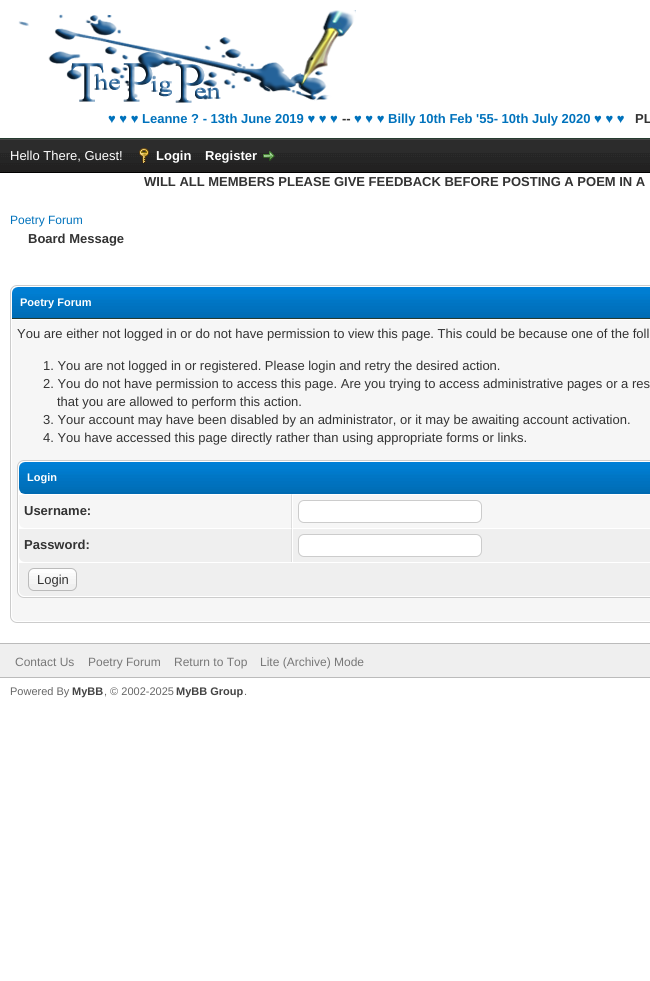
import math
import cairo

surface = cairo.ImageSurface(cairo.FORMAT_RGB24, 650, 981)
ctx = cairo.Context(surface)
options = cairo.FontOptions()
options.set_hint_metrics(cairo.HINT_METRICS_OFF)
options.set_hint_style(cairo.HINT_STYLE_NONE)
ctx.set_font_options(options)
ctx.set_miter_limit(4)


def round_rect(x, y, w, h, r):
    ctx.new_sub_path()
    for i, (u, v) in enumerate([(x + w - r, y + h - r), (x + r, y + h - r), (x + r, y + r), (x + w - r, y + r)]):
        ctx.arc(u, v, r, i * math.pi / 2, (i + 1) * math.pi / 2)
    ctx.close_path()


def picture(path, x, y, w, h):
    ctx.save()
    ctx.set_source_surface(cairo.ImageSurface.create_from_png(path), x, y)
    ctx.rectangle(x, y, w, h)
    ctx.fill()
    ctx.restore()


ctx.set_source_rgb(1, 1, 1)
ctx.paint()
ctx.set_source_rgb(0.149, 0.235, 0.188)
ctx.rectangle(0, 138, 650, 1)
ctx.fill()
picture("img1.png", 18, 10, 338, 93)
ctx.select_font_face("Liberation Sans", cairo.FONT_SLANT_NORMAL, cairo.FONT_WEIGHT_BOLD)
ctx.set_font_size(13)
ctx.set_source_rgb(0, 0.447, 0.737)
ctx.move_to(108, 123)
ctx.show_text("♥ ♥ ♥ Leanne ? - 13th June 2019 ♥ ♥ ♥")
ctx.set_source_rgb(0.2, 0.2, 0.2)
ctx.move_to(342, 123)
ctx.show_text("--")
ctx.set_source_rgb(0, 0.447, 0.737)
ctx.move_to(354, 123)
ctx.show_text("♥ ♥ ♥ Billy 10th Feb '55- 10th July 2020 ♥ ♥ ♥")
ctx.set_source_rgb(0.2, 0.2, 0.2)
ctx.move_to(635, 123)
ctx.show_text("PL")
picture("img2.png", 0, 140, 650, 32)
ctx.set_source_rgb(0.267, 0.267, 0.267)
ctx.rectangle(0, 139, 650, 1)
ctx.fill()
ctx.set_source_rgb(0, 0, 0)
ctx.rectangle(0, 172, 650, 1)
ctx.fill()
ctx.select_font_face("Liberation Sans")
ctx.set_source_rgb(1, 1, 1)
ctx.move_to(10, 160)
ctx.show_text("Hello There, Guest!")
picture("img3.png", 139, 148, 10, 15)
ctx.select_font_face("Liberation Sans", cairo.FONT_SLANT_NORMAL, cairo.FONT_WEIGHT_BOLD)
ctx.move_to(156, 160)
ctx.show_text("Login")
ctx.move_to(205, 160)
ctx.show_text("Register")
picture("img4.png", 263, 151, 12, 10)
ctx.set_source_rgb(0.2, 0.2, 0.2)
ctx.move_to(144, 186)
ctx.show_text("WILL ALL MEMBERS PLEASE GIVE FEEDBACK BEFORE POSTING A POEM IN A")
ctx.select_font_face("Liberation Sans")
ctx.set_font_size(12)
ctx.set_source_rgb(0, 0.447, 0.737)
ctx.move_to(10, 224)
ctx.show_text("Poetry Forum")
ctx.select_font_face("Liberation Sans", cairo.FONT_SLANT_NORMAL, cairo.FONT_WEIGHT_BOLD)
ctx.set_font_size(13)
ctx.set_source_rgb(0.2, 0.2, 0.2)
ctx.move_to(28, 243)
ctx.show_text("Board Message")
round_rect(10.5, 285.5, 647, 337, 6.5)
ctx.set_source_rgb(0.8, 0.8, 0.8)
ctx.set_line_width(1)
ctx.stroke()
picture("img5.png", 12, 287, 638, 31)
ctx.set_source_rgb(0.149, 0.235, 0.188)
ctx.rectangle(12, 318, 638, 1)
ctx.fill()
ctx.set_font_size(11)
ctx.set_source_rgb(1, 1, 1)
ctx.move_to(20, 306)
ctx.show_text("Poetry Forum")
ctx.set_source_rgb(0.961, 0.961, 0.961)
ctx.new_path()
ctx.move_to(12, 319)
ctx.line_to(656, 319)
ctx.line_to(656, 615)
ctx.curve_to(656, 618.5, 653.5, 621, 650, 621)
ctx.line_to(18, 621)
ctx.curve_to(14.5, 621, 12, 618.5, 12, 615)
ctx.close_path()
ctx.fill()
ctx.set_source_rgb(1, 1, 1)
ctx.rectangle(12, 319, 638, 1)
ctx.fill()
ctx.select_font_face("Liberation Sans")
ctx.set_font_size(13)
ctx.set_source_rgb(0.2, 0.2, 0.2)
ctx.move_to(17, 338)
ctx.show_text("You are either not logged in or do not have permission to view this page. This could be because one of the foll")
ctx.move_to(43, 370)
ctx.show_text("1. You are not logged in or registered. Please login and retry the desired action.")
ctx.move_to(43, 388)
ctx.show_text("2. You do not have permission to access this page. Are you trying to access administrative pages or a res")
ctx.move_to(57, 406)
ctx.show_text("that you are allowed to perform this action.")
ctx.move_to(43, 424)
ctx.show_text("3. Your account may have been disabled by an administrator, or it may be awaiting account activation.")
ctx.move_to(43, 442)
ctx.show_text("4. You have accessed this page directly rather than using appropriate forms or links.")
ctx.set_source_rgb(1, 1, 1)
round_rect(17.5, 460.5, 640, 137, 6.5)
ctx.fill_preserve()
ctx.set_source_rgb(0.8, 0.8, 0.8)
ctx.stroke()
picture("img6.png", 19, 462, 631, 32)
ctx.select_font_face("Liberation Sans", cairo.FONT_SLANT_NORMAL, cairo.FONT_WEIGHT_BOLD)
ctx.set_font_size(11)
ctx.set_source_rgb(1, 1, 1)
ctx.move_to(27, 481)
ctx.show_text("Login")
ctx.set_source_rgb(0.961, 0.961, 0.961)
ctx.new_path()
ctx.move_to(19, 494)
ctx.line_to(292, 494)
ctx.line_to(292, 528)
ctx.line_to(25, 528)
ctx.curve_to(21.5, 528, 19, 525.5, 19, 522)
ctx.close_path()
ctx.fill()
ctx.set_source_rgb(1, 1, 1)
ctx.new_path()
ctx.move_to(19, 494)
ctx.line_to(19, 495)
ctx.line_to(291, 495)
ctx.line_to(292, 494)
ctx.close_path()
ctx.fill()
ctx.set_source_rgb(0.867, 0.867, 0.867)
ctx.new_path()
ctx.move_to(292, 494)
ctx.line_to(291, 495)
ctx.line_to(291, 528)
ctx.line_to(292, 528)
ctx.close_path()
ctx.fill()
ctx.set_font_size(13)
ctx.set_source_rgb(0.2, 0.2, 0.2)
ctx.move_to(24, 515)
ctx.show_text("Username:")
ctx.set_source_rgb(0.961, 0.961, 0.961)
ctx.rectangle(293, 495, 357, 33)
ctx.fill()
ctx.set_source_rgb(1, 1, 1)
round_rect(298.5, 500.5, 183, 22, 5.5)
ctx.fill_preserve()
ctx.set_source_rgb(0.8, 0.8, 0.8)
ctx.stroke()
ctx.set_source_rgb(0.937, 0.937, 0.937)
ctx.new_path()
ctx.move_to(19, 528)
ctx.line_to(292, 528)
ctx.line_to(292, 562)
ctx.line_to(25, 562)
ctx.curve_to(21.5, 562, 19, 559.5, 19, 556)
ctx.close_path()
ctx.fill()
ctx.set_source_rgb(1, 1, 1)
ctx.new_path()
ctx.move_to(19, 528)
ctx.line_to(19, 529)
ctx.line_to(291, 529)
ctx.line_to(292, 528)
ctx.close_path()
ctx.fill()
ctx.set_source_rgb(0.867, 0.867, 0.867)
ctx.new_path()
ctx.move_to(292, 528)
ctx.line_to(291, 529)
ctx.line_to(291, 562)
ctx.line_to(292, 562)
ctx.close_path()
ctx.fill()
ctx.set_source_rgb(0.2, 0.2, 0.2)
ctx.move_to(24, 549)
ctx.show_text("Password:")
ctx.set_source_rgb(0.937, 0.937, 0.937)
ctx.rectangle(293, 529, 357, 33)
ctx.fill()
ctx.set_source_rgb(1, 1, 1)
round_rect(298.5, 534.5, 183, 22, 5.5)
ctx.fill_preserve()
ctx.set_source_rgb(0.8, 0.8, 0.8)
ctx.stroke()
ctx.set_source_rgb(0.937, 0.937, 0.937)
ctx.new_path()
ctx.move_to(19, 562)
ctx.line_to(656, 562)
ctx.line_to(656, 590)
ctx.curve_to(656, 593.5, 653.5, 596, 650, 596)
ctx.line_to(25, 596)
ctx.curve_to(21.5, 596, 19, 593.5, 19, 590)
ctx.close_path()
ctx.fill()
ctx.set_source_rgb(1, 1, 1)
ctx.rectangle(19, 562, 631, 1)
ctx.fill()
picture("img7.png", 28, 569, 49, 15)
round_rect(28.5, 568.5, 48, 22, 5.5)
ctx.set_source_rgb(0.733, 0.733, 0.733)
ctx.stroke()
ctx.select_font_face("Liberation Sans")
ctx.set_source_rgb(0.2, 0.2, 0.2)
ctx.move_to(37, 584)
ctx.show_text("Login")
ctx.set_source_rgb(0.937, 0.937, 0.937)
ctx.rectangle(0, 644, 650, 33)
ctx.fill()
ctx.set_source_rgb(0.733, 0.733, 0.733)
ctx.rectangle(0, 643, 650, 1)
ctx.fill()
ctx.rectangle(0, 677, 650, 1)
ctx.fill()
ctx.set_font_size(12)
ctx.set_source_rgb(0.467, 0.467, 0.467)
ctx.move_to(15, 666)
ctx.show_text("Contact Us")
ctx.move_to(88, 666)
ctx.show_text("Poetry Forum")
ctx.move_to(174, 666)
ctx.show_text("Return to Top")
ctx.move_to(260, 666)
ctx.show_text("Lite (Archive) Mode")
ctx.set_font_size(11)
ctx.set_source_rgb(0.4, 0.4, 0.4)
ctx.move_to(10, 695)
ctx.show_text("Powered By")
ctx.select_font_face("Liberation Sans", cairo.FONT_SLANT_NORMAL, cairo.FONT_WEIGHT_BOLD)
ctx.set_source_rgb(0.267, 0.267, 0.267)
ctx.move_to(72, 695)
ctx.show_text("MyBB")
ctx.select_font_face("Liberation Sans")
ctx.set_source_rgb(0.4, 0.4, 0.4)
ctx.move_to(104, 695)
ctx.show_text(", © 2002-2025")
ctx.select_font_face("Liberation Sans", cairo.FONT_SLANT_NORMAL, cairo.FONT_WEIGHT_BOLD)
ctx.set_source_rgb(0.267, 0.267, 0.267)
ctx.move_to(176, 695)
ctx.show_text("MyBB Group")
ctx.select_font_face("Liberation Sans")
ctx.set_source_rgb(0.4, 0.4, 0.4)
ctx.move_to(244, 695)
ctx.show_text(".")
surface.write_to_png("page.png")
